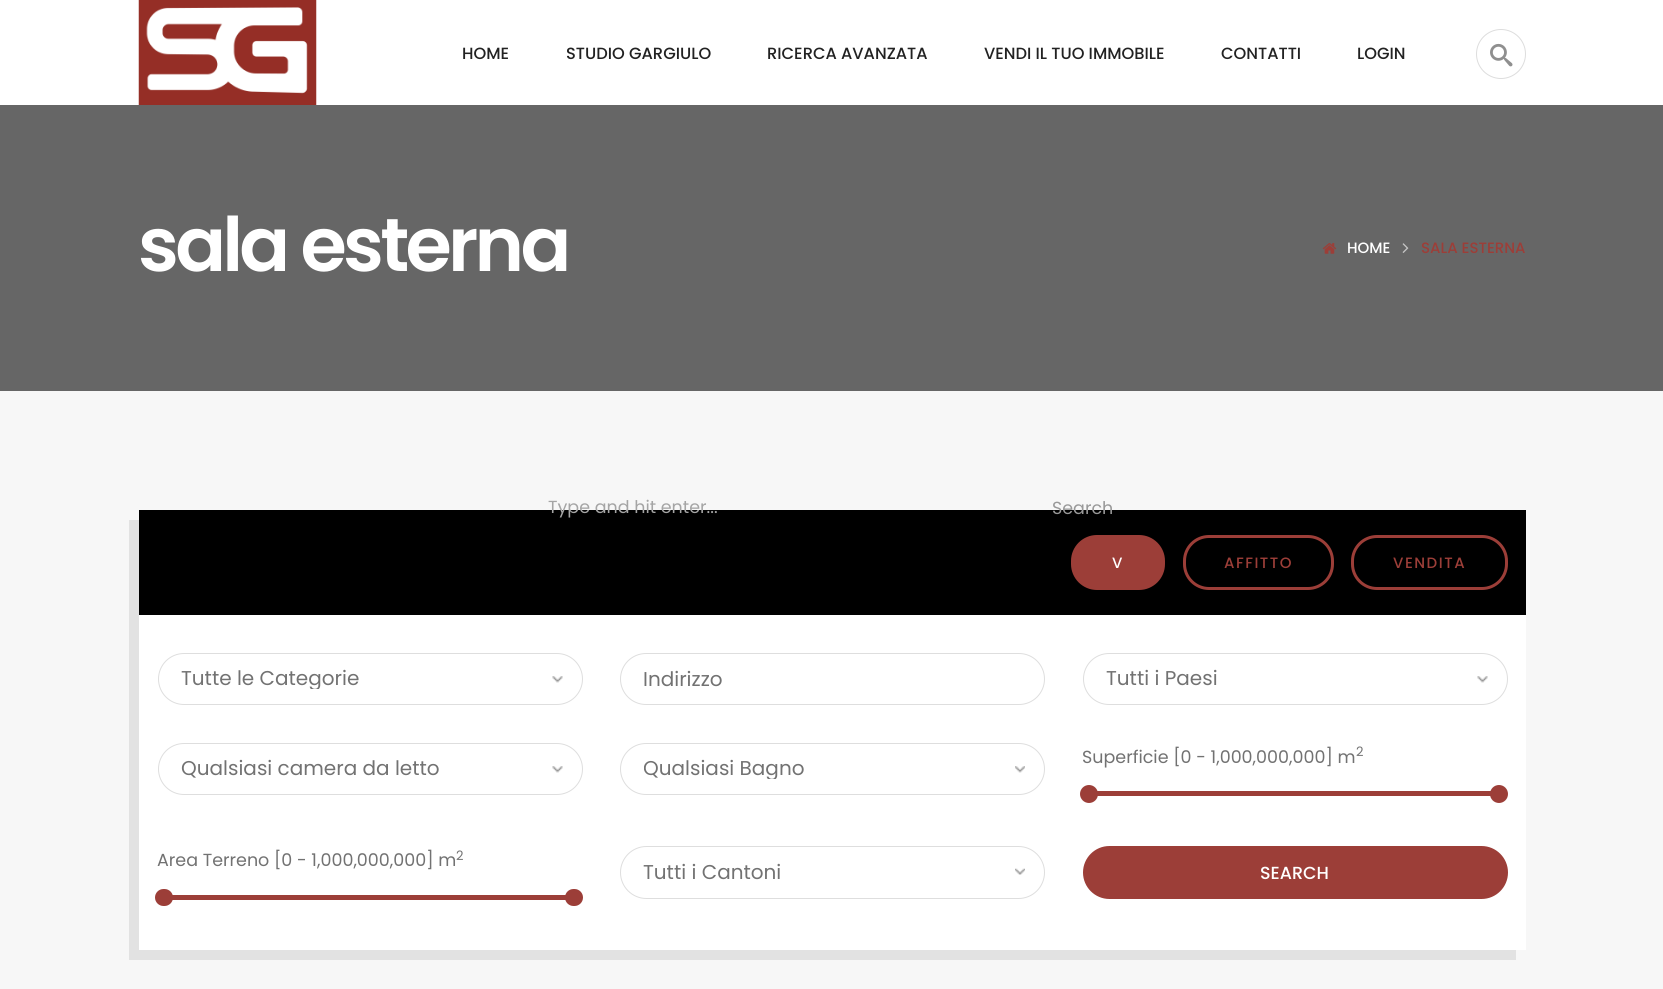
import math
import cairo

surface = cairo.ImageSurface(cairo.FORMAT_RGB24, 1663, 989)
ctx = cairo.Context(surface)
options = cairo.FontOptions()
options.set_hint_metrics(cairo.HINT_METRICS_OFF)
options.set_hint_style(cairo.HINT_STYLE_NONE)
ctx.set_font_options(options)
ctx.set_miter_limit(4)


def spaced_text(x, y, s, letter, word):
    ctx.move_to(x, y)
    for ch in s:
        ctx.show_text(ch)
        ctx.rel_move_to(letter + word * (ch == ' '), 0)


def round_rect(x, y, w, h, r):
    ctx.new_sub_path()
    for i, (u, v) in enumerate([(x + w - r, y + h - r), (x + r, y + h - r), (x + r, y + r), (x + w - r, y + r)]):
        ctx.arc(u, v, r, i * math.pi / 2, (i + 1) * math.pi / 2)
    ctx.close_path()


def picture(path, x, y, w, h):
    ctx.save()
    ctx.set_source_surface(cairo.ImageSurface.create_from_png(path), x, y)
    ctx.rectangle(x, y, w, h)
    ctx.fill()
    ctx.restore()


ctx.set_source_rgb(1, 1, 1)
ctx.paint()
picture("img1.png", 138, 0, 179, 105)
ctx.select_font_face("Poppins Medium")
ctx.set_font_size(16.25)
ctx.set_source_rgb(0.133, 0.133, 0.133)
ctx.move_to(462, 59)
ctx.show_text("HOME")
ctx.move_to(566, 59)
ctx.show_text("STUDIO GARGIULO")
ctx.move_to(767, 59)
ctx.show_text("RICERCA AVANZATA")
ctx.move_to(984, 59)
ctx.show_text("VENDI IL TUO IMMOBILE")
ctx.move_to(1221, 59)
ctx.show_text("CONTATTI")
ctx.move_to(1357, 59)
ctx.show_text("LOGIN")
ctx.new_path()
ctx.arc(1501, 54, 24.5, 0, 2 * math.pi)
ctx.set_source_rgb(0.867, 0.867, 0.867)
ctx.set_line_width(1)
ctx.stroke()
picture("img2.png", 1490, 43, 23, 24)
ctx.set_source_rgb(0.4, 0.4, 0.4)
ctx.rectangle(0, 105, 1663, 286)
ctx.fill()
ctx.select_font_face("Poppins SemiBold")
ctx.set_font_size(75)
ctx.set_source_rgb(1, 1, 1)
spaced_text(138, 271, "sala esterna", -3.75, 0)
picture("img3.png", 1322, 243, 15, 11)
ctx.select_font_face("Poppins Medium")
ctx.set_font_size(15)
ctx.move_to(1347, 253)
ctx.show_text("HOME")
picture("img4.png", 1402, 243, 7, 10)
ctx.set_source_rgb(0.612, 0.243, 0.22)
ctx.move_to(1421, 253)
ctx.show_text("SALA ESTERNA")
ctx.set_source_rgb(0.965, 0.965, 0.965)
ctx.rectangle(0, 391, 1663, 598)
ctx.fill()
ctx.set_source_rgb(0.886, 0.886, 0.886)
ctx.new_path()
ctx.move_to(129, 520)
ctx.line_to(129, 960)
ctx.line_to(1516, 960)
ctx.line_to(1516, 950)
ctx.line_to(139, 950)
ctx.line_to(139, 520)
ctx.close_path()
ctx.fill()
ctx.set_source_rgb(1, 1, 1)
ctx.rectangle(139, 615, 1387, 335)
ctx.fill()
ctx.set_source_rgb(0, 0, 0)
ctx.rectangle(139, 510, 1387, 105)
ctx.fill()
ctx.set_source_rgb(0.612, 0.243, 0.22)
round_rect(1072.5, 536.5, 91, 52, 24.5)
ctx.fill_preserve()
ctx.set_line_width(3)
ctx.stroke()
ctx.set_source_rgb(1, 1, 1)
spaced_text(1112, 568, "V", 1.5, 0)
round_rect(1184.5, 536.5, 148, 52, 24.5)
ctx.set_source_rgb(0.612, 0.243, 0.22)
ctx.stroke()
spaced_text(1224, 568, "AFFITTO", 1.5, 0)
round_rect(1352.5, 536.5, 154, 52, 24.5)
ctx.stroke()
spaced_text(1393, 568, "VENDITA", 1.5, 0)
picture("img5.png", 552, 676, 11, 7)
round_rect(158.5, 653.5, 424, 51, 25.5)
ctx.set_source_rgb(0.871, 0.871, 0.871)
ctx.set_line_width(1)
ctx.stroke()
ctx.save()
ctx.rectangle(181, 669, 378, 20)
ctx.clip()
ctx.select_font_face("Poppins")
ctx.set_font_size(20)
ctx.set_source_rgb(0.447, 0.447, 0.447)
ctx.move_to(181, 685)
ctx.show_text("Tutte le Categorie")
ctx.restore()
round_rect(620.5, 653.5, 424, 51, 25.5)
ctx.stroke()
ctx.select_font_face("Poppins")
ctx.set_font_size(20)
ctx.set_source_rgb(0.447, 0.447, 0.447)
ctx.move_to(643, 686)
ctx.show_text("Indirizzo")
picture("img5.png", 1477, 676, 11, 7)
round_rect(1083.5, 653.5, 424, 51, 25.5)
ctx.set_source_rgb(0.871, 0.871, 0.871)
ctx.stroke()
ctx.set_source_rgb(0.447, 0.447, 0.447)
ctx.move_to(1106, 685)
ctx.show_text("Tutti i Paesi")
picture("img5.png", 552, 766, 11, 7)
round_rect(158.5, 743.5, 424, 51, 25.5)
ctx.set_source_rgb(0.871, 0.871, 0.871)
ctx.stroke()
ctx.set_source_rgb(0.447, 0.447, 0.447)
ctx.move_to(181, 775)
ctx.show_text("Qualsiasi camera da letto")
picture("img6.png", 1015, 766, 10, 7)
round_rect(620.5, 743.5, 424, 51, 25.5)
ctx.set_source_rgb(0.871, 0.871, 0.871)
ctx.stroke()
ctx.save()
ctx.rectangle(644, 759, 377, 20)
ctx.clip()
ctx.set_source_rgb(0.447, 0.447, 0.447)
ctx.move_to(643, 775)
ctx.show_text("Qualsiasi Bagno")
ctx.restore()
ctx.set_font_size(17.5)
ctx.set_source_rgb(0.447, 0.447, 0.447)
ctx.move_to(1082, 763)
ctx.show_text("Superficie [0 - 1,000,000,000] m")
ctx.set_font_size(13)
ctx.move_to(1356, 756)
ctx.show_text("2")
ctx.set_source_rgb(0.612, 0.243, 0.22)
ctx.rectangle(1093, 791, 398, 5)
ctx.fill()
ctx.arc(1089, 794, 9, 0, 2 * math.pi)
ctx.fill()
ctx.arc(1499, 794, 9, 0, 2 * math.pi)
ctx.fill()
ctx.set_font_size(17.5)
ctx.set_source_rgb(0.447, 0.447, 0.447)
ctx.move_to(157, 866)
ctx.show_text("Area Terreno [0 - 1,000,000,000] m")
ctx.set_font_size(13)
ctx.move_to(456, 860)
ctx.show_text("2")
ctx.set_source_rgb(0.612, 0.243, 0.22)
ctx.rectangle(168, 895, 398, 5)
ctx.fill()
round_rect(155, 889, 18, 17, 8.5)
ctx.fill()
round_rect(565, 889, 18, 17, 8.5)
ctx.fill()
picture("img7.png", 1015, 868, 10, 7)
round_rect(620.5, 846.5, 424, 52, 26)
ctx.set_source_rgb(0.871, 0.871, 0.871)
ctx.stroke()
ctx.set_font_size(20)
ctx.set_source_rgb(0.447, 0.447, 0.447)
ctx.move_to(643, 879)
ctx.show_text("Tutti i Cantoni")
ctx.set_source_rgb(0.612, 0.243, 0.22)
round_rect(1084.5, 847.5, 422, 50, 25)
ctx.fill_preserve()
ctx.set_line_width(3)
ctx.stroke()
ctx.select_font_face("Poppins Medium")
ctx.set_font_size(17.5)
ctx.set_source_rgb(1, 1, 1)
ctx.move_to(1260, 879)
ctx.show_text("SEARCH")
ctx.select_font_face("Poppins")
ctx.set_source_rgb(0.647, 0.647, 0.647)
ctx.move_to(548, 513)
ctx.show_text("Type and hit enter...")
ctx.set_source_rgb(0.6, 0.6, 0.6)
ctx.move_to(1052, 514)
ctx.show_text("Search")
surface.write_to_png("page.png")
